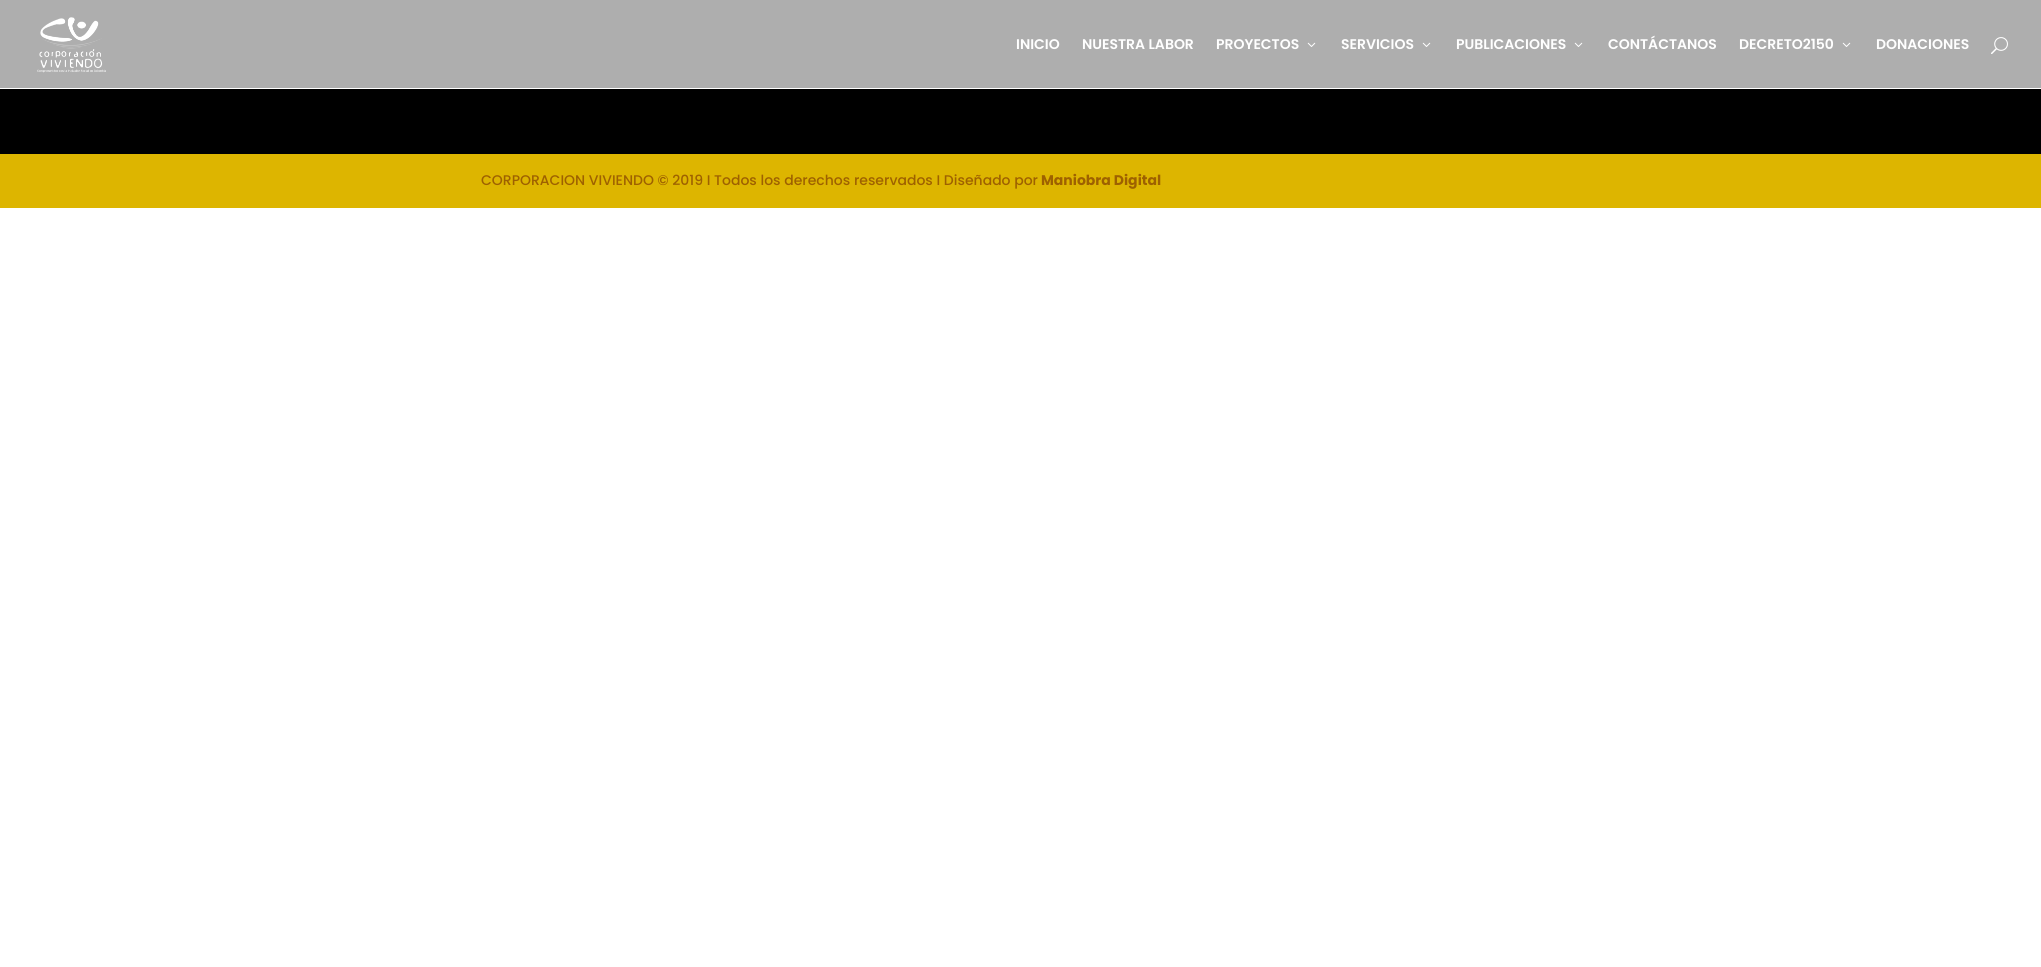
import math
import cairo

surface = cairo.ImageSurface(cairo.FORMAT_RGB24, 2041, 967)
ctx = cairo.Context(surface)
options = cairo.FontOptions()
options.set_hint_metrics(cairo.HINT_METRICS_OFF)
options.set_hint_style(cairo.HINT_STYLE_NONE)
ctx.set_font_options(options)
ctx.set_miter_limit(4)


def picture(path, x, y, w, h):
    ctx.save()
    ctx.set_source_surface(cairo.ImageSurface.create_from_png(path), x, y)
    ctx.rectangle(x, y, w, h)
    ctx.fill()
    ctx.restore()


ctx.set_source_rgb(1, 1, 1)
ctx.paint()
ctx.set_source_rgb(0.682, 0.682, 0.682)
ctx.rectangle(0, 0, 2041, 88)
ctx.fill()
picture("img1.png", 37, 17, 69, 56)
ctx.select_font_face("Poppins SemiBold")
ctx.set_font_size(14)
ctx.set_source_rgb(1, 1, 1)
ctx.move_to(1016, 49)
ctx.show_text("INICIO")
ctx.move_to(1082, 49)
ctx.show_text("NUESTRA LABOR")
ctx.move_to(1216, 49)
ctx.show_text("PROYECTOS")
picture("img2.png", 1307, 42, 9, 5)
ctx.move_to(1341, 49)
ctx.show_text("SERVICIOS")
picture("img2.png", 1422, 42, 9, 5)
ctx.move_to(1456, 49)
ctx.show_text("PUBLICACIONES")
picture("img2.png", 1574, 42, 9, 5)
ctx.move_to(1608, 49)
ctx.show_text("CONTÁCTANOS")
ctx.move_to(1739, 49)
ctx.show_text("DECRETO2150")
picture("img2.png", 1842, 42, 9, 5)
ctx.move_to(1876, 49)
ctx.show_text("DONACIONES")
picture("img3.png", 1991, 37, 17, 17)
ctx.set_source_rgb(0, 0, 0)
ctx.rectangle(0, 89, 2041, 65)
ctx.fill()
ctx.set_source_rgb(0.867, 0.71, 0)
ctx.rectangle(0, 154, 2041, 54)
ctx.fill()
ctx.select_font_face("Poppins Medium")
ctx.set_source_rgb(0.62, 0.38, 0)
ctx.move_to(481, 185)
ctx.show_text("CORPORACION VIVIENDO © 2019 I Todos los derechos reservados I Diseñado por")
ctx.select_font_face("Poppins", cairo.FONT_SLANT_NORMAL, cairo.FONT_WEIGHT_BOLD)
ctx.move_to(1041, 185)
ctx.show_text("Maniobra Digital")
surface.write_to_png("page.png")
